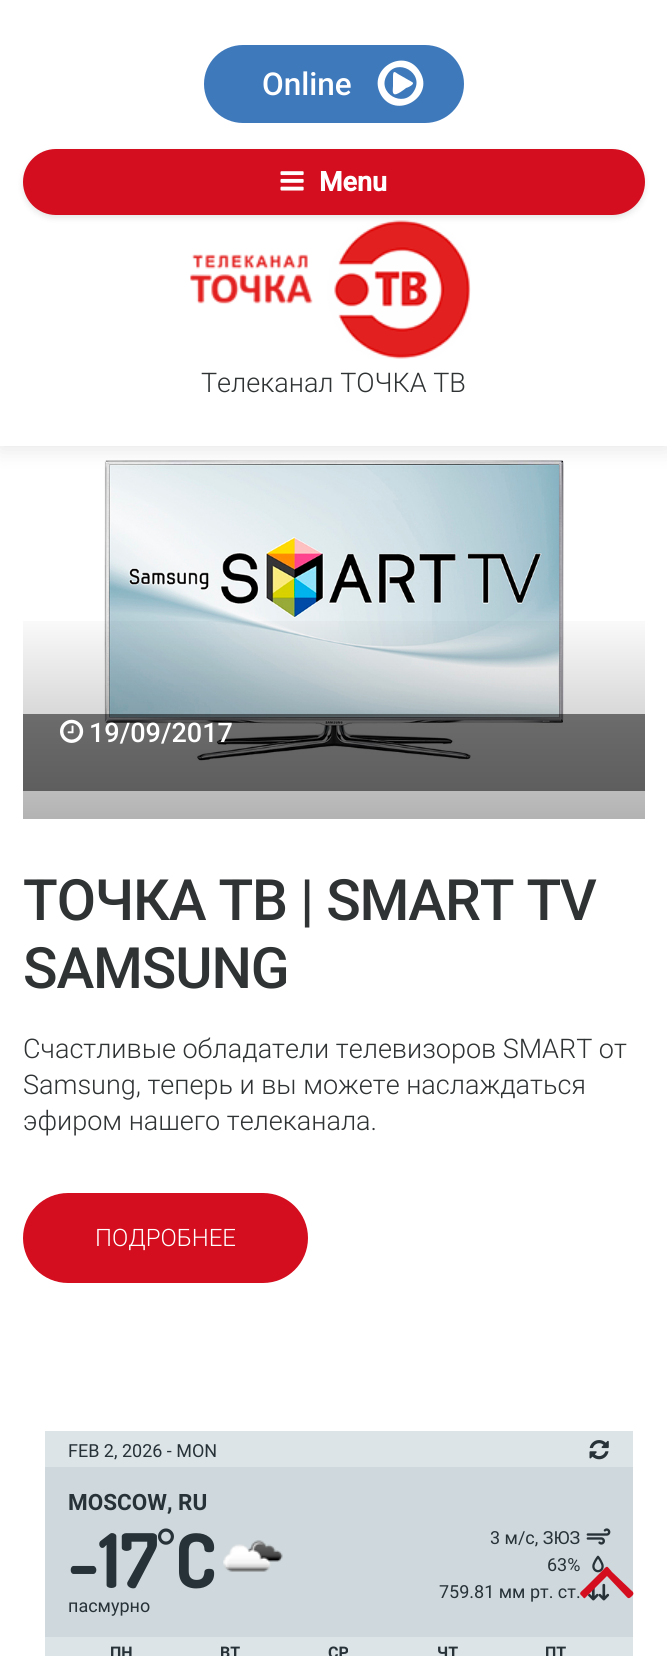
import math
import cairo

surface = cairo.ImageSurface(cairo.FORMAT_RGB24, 667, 1656)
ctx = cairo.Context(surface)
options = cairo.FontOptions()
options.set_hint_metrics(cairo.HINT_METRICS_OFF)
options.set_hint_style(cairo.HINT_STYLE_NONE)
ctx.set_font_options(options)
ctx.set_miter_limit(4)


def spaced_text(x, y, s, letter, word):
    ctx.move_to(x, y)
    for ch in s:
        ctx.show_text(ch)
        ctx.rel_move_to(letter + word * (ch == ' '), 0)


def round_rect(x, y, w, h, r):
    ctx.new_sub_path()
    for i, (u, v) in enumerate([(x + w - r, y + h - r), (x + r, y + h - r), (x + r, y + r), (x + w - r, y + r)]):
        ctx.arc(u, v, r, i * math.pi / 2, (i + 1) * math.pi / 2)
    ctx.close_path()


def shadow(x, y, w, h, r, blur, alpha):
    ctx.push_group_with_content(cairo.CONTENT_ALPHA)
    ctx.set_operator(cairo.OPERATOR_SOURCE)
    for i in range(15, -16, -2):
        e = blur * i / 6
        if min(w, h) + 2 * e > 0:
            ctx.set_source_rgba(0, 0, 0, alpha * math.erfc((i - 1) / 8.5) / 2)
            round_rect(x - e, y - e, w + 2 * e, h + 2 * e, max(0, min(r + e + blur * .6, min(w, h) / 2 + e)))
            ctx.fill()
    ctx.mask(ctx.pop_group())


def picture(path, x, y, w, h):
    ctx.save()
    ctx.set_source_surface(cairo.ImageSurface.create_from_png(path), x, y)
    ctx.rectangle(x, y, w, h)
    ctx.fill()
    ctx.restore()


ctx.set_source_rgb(1, 1, 1)
ctx.paint()
picture("img3.png", 104, 460, 460, 301)
ctx.set_source_rgb(0, 0, 0)
shadow(0, 3, 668, 446, 0, 11, 0.1)
ctx.set_source_rgb(1, 1, 1)
ctx.rectangle(0, 0, 667, 446)
ctx.fill()
ctx.set_source_rgb(0.243, 0.475, 0.737)
round_rect(204, 45, 260, 78, 39)
ctx.fill()
ctx.select_font_face("Roboto Medium")
ctx.set_font_size(31.5)
ctx.set_source_rgb(1, 1, 1)
ctx.move_to(262, 95)
ctx.show_text("Online")
ctx.new_path()
ctx.move_to(412, 82)
ctx.curve_to(416, 84, 407, 88, 406, 88)
ctx.curve_to(405, 89, 396, 96, 394, 94)
ctx.curve_to(392, 93, 393, 88, 393, 86)
ctx.line_to(393, 77)
ctx.curve_to(393, 71, 394, 71, 398, 74)
ctx.close_path()
ctx.move_to(414, 91)
ctx.curve_to(425, 73, 397, 57, 387, 75)
ctx.curve_to(376, 93, 404, 109, 414, 91)
ctx.close_path()
ctx.move_to(420, 72)
ctx.curve_to(435, 97, 396, 120, 381, 95)
ctx.curve_to(366, 69, 405, 46, 420, 72)
ctx.close_path()
ctx.fill()
picture("img2.png", 190, 220, 281, 139)
ctx.set_source_rgb(0, 0, 0)
shadow(23, 152, 622, 66, 33, 3, 0.1)
ctx.set_source_rgb(0.831, 0.055, 0.118)
round_rect(23, 149, 622, 66, 33)
ctx.fill()
picture("img1.png", 280, 171, 24, 20)
ctx.select_font_face("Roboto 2", cairo.FONT_SLANT_NORMAL, cairo.FONT_WEIGHT_BOLD)
ctx.set_font_size(27)
ctx.set_source_rgb(1, 1, 1)
ctx.move_to(319, 191)
ctx.show_text("Menu")
ctx.select_font_face("Roboto Light")
ctx.set_source_rgb(0.188, 0.2, 0.204)
ctx.move_to(201, 392)
ctx.show_text("Телеканал ТОЧКА ТВ")
gradient = cairo.LinearGradient(334, 606, 334, 819)
gradient.add_color_stop_rgba(0, 0, 0, 0, 0)
gradient.add_color_stop_rgba(1, 0, 0, 0, 0.3)
ctx.set_source(gradient)
ctx.rectangle(23, 621, 622, 198)
ctx.fill()
ctx.set_source_rgba(0, 0, 0, 0.5)
ctx.rectangle(23, 714, 622, 77)
ctx.fill()
picture("img4.png", 60, 719, 24, 24)
ctx.select_font_face("Roboto Medium")
ctx.set_source_rgb(1, 1, 1)
ctx.move_to(89, 742)
ctx.show_text("19/09/2017")
ctx.set_font_size(57)
ctx.set_source_rgb(0.188, 0.2, 0.204)
spaced_text(23, 920, "ТОЧКА ТВ | SMART TV", -1.1, 0)
spaced_text(23, 988, "SAMSUNG", -1.1, 0)
ctx.select_font_face("Roboto Light")
ctx.set_font_size(27)
ctx.move_to(23, 1058)
ctx.show_text("Счастливые обладатели телевизоров SMART от")
ctx.move_to(23, 1094)
ctx.show_text("Samsung, теперь и вы можете наслаждаться")
ctx.move_to(23, 1130)
ctx.show_text("эфиром нашего телеканала.")
ctx.set_source_rgb(0.831, 0.055, 0.118)
round_rect(23, 1193, 285, 90, 45)
ctx.fill()
ctx.set_font_size(24)
ctx.set_source_rgb(1, 1, 1)
ctx.move_to(95, 1246)
ctx.show_text("ПОДРОБНЕЕ")
ctx.set_source_rgb(0.812, 0.847, 0.863)
ctx.rectangle(45, 1467, 588, 170)
ctx.fill()
ctx.set_source_rgb(0.867, 0.894, 0.906)
ctx.rectangle(45, 1431, 588, 36)
ctx.fill()
ctx.select_font_face("Roboto")
ctx.set_font_size(18)
ctx.set_source_rgb(0.149, 0.196, 0.22)
ctx.move_to(68, 1457)
ctx.show_text("FEB 2, 2026 - MON")
picture("img5.png", 589, 1440, 20, 20)
ctx.select_font_face("Roboto", cairo.FONT_SLANT_NORMAL, cairo.FONT_WEIGHT_BOLD)
ctx.set_font_size(22.5)
ctx.move_to(68, 1510)
ctx.show_text("MOSCOW, RU")
ctx.select_font_face("Dosis", cairo.FONT_SLANT_NORMAL, cairo.FONT_WEIGHT_BOLD)
ctx.set_font_size(75)
ctx.move_to(68, 1588)
ctx.show_text("-17")
ctx.set_font_size(45)
ctx.move_to(157, 1563)
ctx.show_text("°")
ctx.set_font_size(75)
ctx.move_to(175, 1588)
ctx.show_text("C")
picture("img6.png", 223, 1540, 60, 32)
ctx.select_font_face("Roboto")
ctx.set_font_size(18)
ctx.move_to(68, 1612)
ctx.show_text("пасмурно")
ctx.move_to(490, 1544)
ctx.show_text("3 м/с, ЗЮЗ")
ctx.select_font_face("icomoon")
ctx.set_font_size(27)
ctx.move_to(585, 1550)
ctx.show_text("|")
ctx.select_font_face("Roboto")
ctx.set_font_size(18)
ctx.move_to(547, 1571)
ctx.show_text("63%")
ctx.select_font_face("icomoon")
ctx.set_font_size(26)
ctx.move_to(585, 1577)
ctx.show_text("-")
ctx.select_font_face("Roboto")
ctx.set_font_size(18)
ctx.move_to(439, 1598)
ctx.show_text("759.81 мм рт. ст.")
picture("img7.png", 588, 1588, 11, 13)
picture("img8.png", 598, 1583, 12, 18)
ctx.set_source_rgb(0.867, 0.894, 0.906)
ctx.rectangle(45, 1637, 588, 19)
ctx.fill()
ctx.select_font_face("Roboto", cairo.FONT_SLANT_NORMAL, cairo.FONT_WEIGHT_BOLD)
ctx.set_font_size(16)
ctx.set_source_rgb(0.149, 0.196, 0.22)
ctx.move_to(110, 1658)
ctx.show_text("ПН")
ctx.move_to(220, 1658)
ctx.show_text("ВТ")
ctx.move_to(328, 1658)
ctx.show_text("СР")
ctx.move_to(437, 1658)
ctx.show_text("ЧТ")
ctx.move_to(545, 1658)
ctx.show_text("ПТ")
ctx.set_source_rgb(0.831, 0.055, 0.118)
ctx.new_path()
ctx.move_to(633, 1592)
ctx.curve_to(634, 1594, 633, 1595, 632, 1596)
ctx.curve_to(628, 1600, 628, 1598, 624, 1594)
ctx.line_to(607, 1576)
ctx.line_to(585, 1598)
ctx.curve_to(584, 1599, 583, 1597, 582, 1596)
ctx.curve_to(578, 1593, 581, 1592, 585, 1588)
ctx.line_to(601, 1572)
ctx.curve_to(608, 1565, 606, 1565, 612, 1572)
ctx.close_path()
ctx.fill()
surface.write_to_png("page.png")
